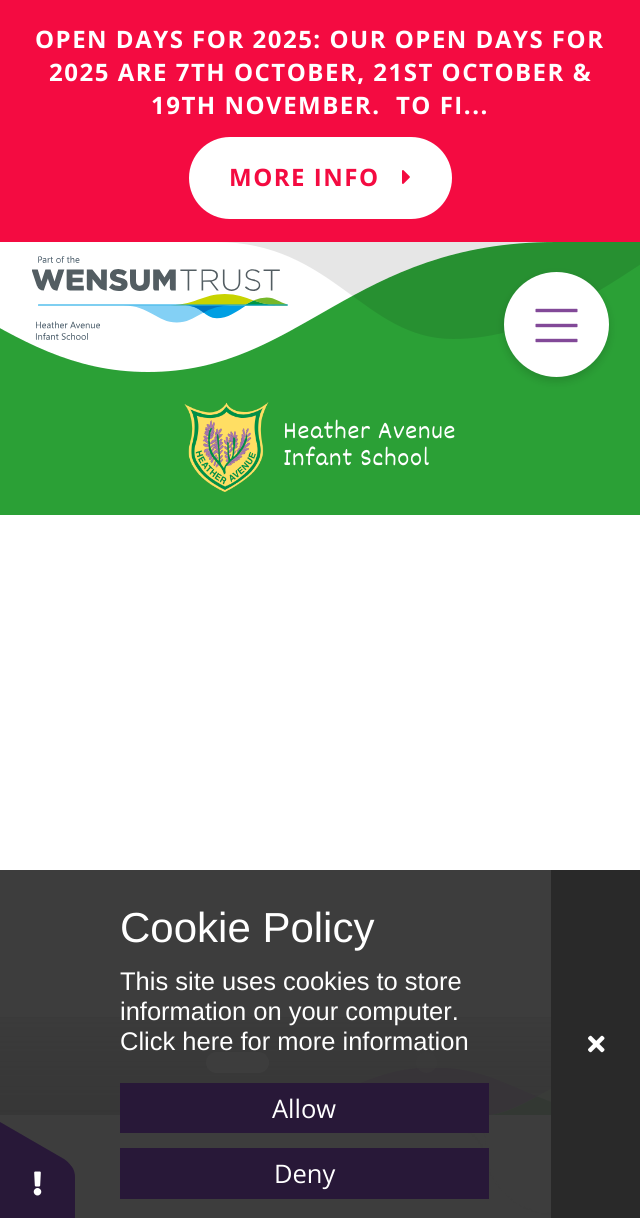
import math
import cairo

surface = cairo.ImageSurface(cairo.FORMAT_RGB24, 640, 1218)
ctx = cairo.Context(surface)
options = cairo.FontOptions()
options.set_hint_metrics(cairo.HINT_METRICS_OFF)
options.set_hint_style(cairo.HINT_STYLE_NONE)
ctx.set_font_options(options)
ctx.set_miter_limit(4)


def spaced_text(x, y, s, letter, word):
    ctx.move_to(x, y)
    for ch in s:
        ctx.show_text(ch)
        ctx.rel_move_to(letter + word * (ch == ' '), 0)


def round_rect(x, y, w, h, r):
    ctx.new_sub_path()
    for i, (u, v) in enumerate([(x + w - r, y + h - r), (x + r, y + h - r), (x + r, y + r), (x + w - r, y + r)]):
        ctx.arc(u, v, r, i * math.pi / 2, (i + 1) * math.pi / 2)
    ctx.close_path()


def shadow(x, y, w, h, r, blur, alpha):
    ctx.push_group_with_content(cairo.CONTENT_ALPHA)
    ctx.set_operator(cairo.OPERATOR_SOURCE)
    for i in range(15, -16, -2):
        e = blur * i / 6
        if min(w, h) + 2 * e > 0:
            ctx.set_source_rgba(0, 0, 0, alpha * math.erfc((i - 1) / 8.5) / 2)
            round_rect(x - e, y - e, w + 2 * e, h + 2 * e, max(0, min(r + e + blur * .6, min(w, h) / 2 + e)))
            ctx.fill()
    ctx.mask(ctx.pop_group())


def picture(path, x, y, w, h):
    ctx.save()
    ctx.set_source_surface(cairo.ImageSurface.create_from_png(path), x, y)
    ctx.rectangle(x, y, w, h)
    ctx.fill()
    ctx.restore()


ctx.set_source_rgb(1, 1, 1)
ctx.paint()
ctx.set_source_rgb(0.239, 0.239, 0.239)
ctx.rectangle(0, 870, 551, 245)
ctx.fill()
ctx.set_source_rgb(0.957, 0.043, 0.255)
ctx.rectangle(0, 0, 640, 242)
ctx.fill()
ctx.select_font_face("Open Sans", cairo.FONT_SLANT_NORMAL, cairo.FONT_WEIGHT_BOLD)
ctx.set_font_size(24)
ctx.set_source_rgb(1, 1, 1)
spaced_text(35, 48, "OPEN DAYS FOR 2025: OUR OPEN DAYS FOR", 1.5, 0)
spaced_text(49, 81, "2025 ARE 7TH OCTOBER, 21ST OCTOBER &", 1.5, 0)
spaced_text(151, 114, "19TH NOVEMBER.  TO FI...", 1.5, 0)
round_rect(190.5, 138.5, 260, 79, 39.5)
ctx.fill_preserve()
ctx.set_line_width(3)
ctx.stroke()
ctx.set_source_rgb(0.957, 0.043, 0.255)
spaced_text(229, 186, "MORE INFO", 1.5, 0)
picture("img1.png", 402, 170, 8, 14)
ctx.set_source_rgb(0.169, 0.627, 0.212)
ctx.rectangle(0, 242, 640, 273)
ctx.fill()
ctx.set_source_rgb(1, 1, 1)
ctx.new_path()
ctx.move_to(-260, 242)
ctx.line_to(556, 242)
ctx.curve_to(351, 242, 301, 372, 148, 372)
ctx.curve_to(-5, 372, -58, 242, -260, 242)
ctx.fill()
ctx.set_source_rgba(0, 0, 0, 0.1)
ctx.new_path()
ctx.move_to(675, 242)
ctx.line_to(216, 242)
ctx.curve_to(333, 242, 364, 339, 453, 339)
ctx.curve_to(536, 339, 604, 288, 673, 243)
ctx.close_path()
ctx.fill()
picture("img2.png", 32, 256, 256, 84)
ctx.set_source_rgb(0, 0, 0)
shadow(504, 276, 105, 105, 52.5, 4.5, 0.15)
ctx.set_source_rgb(1, 1, 1)
ctx.arc(556.5, 324.5, 52.5, 0, 2 * math.pi)
ctx.fill()
picture("img3.png", 535, 308, 43, 35)
picture("img4.png", 184, 402, 85, 90)
ctx.select_font_face("Dekko")
ctx.set_font_size(27)
spaced_text(283, 438, "Heather Avenue", 0.75, 0)
spaced_text(283, 465, "Infant School", 0.75, 0)
gradient = cairo.LinearGradient(320, 965, 320, 1115)
gradient.add_color_stop_rgba(0, 0.188, 0.188, 0.188, 0)
gradient.add_color_stop_rgba(1, 0.188, 0.188, 0.188, 0.5)
ctx.set_source(gradient)
ctx.rectangle(0, 1017, 551, 98)
ctx.fill()
ctx.set_source_rgb(0.239, 0.239, 0.239)
round_rect(206, 1052, 63, 21, 10.5)
ctx.fill()
picture("img5.png", 360, 1068, 191, 47)
ctx.set_source_rgba(0.239, 0.239, 0.239, 0.3)
ctx.arc(426.5, 1062.5, 10.5, 0, 2 * math.pi)
ctx.fill()
gradient = cairo.LinearGradient(320, 1115, 320, 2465)
gradient.add_color_stop_rgba(0, 0.239, 0.239, 0.239, 1)
gradient.add_color_stop_rgba(1, 0.227, 0.235, 0.239, 1)
ctx.set_source(gradient)
ctx.rectangle(0, 1115, 551, 103)
ctx.fill()
picture("img6.png", 463, 1115, 88, 103)
ctx.set_source_rgb(0.157, 0.094, 0.22)
ctx.new_path()
ctx.move_to(75, 1177)
ctx.line_to(75, 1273)
ctx.curve_to(75, 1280, 72, 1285, 69, 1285)
ctx.line_to(-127, 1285)
ctx.curve_to(-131, 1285, -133, 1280, -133, 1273)
ctx.line_to(-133, 1177)
ctx.curve_to(-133, 1171, -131, 1165, -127, 1165)
ctx.line_to(69, 1165)
ctx.curve_to(72, 1165, 75, 1171, 75, 1177)
ctx.close_path()
ctx.fill()
ctx.new_path()
ctx.move_to(-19, 1111)
ctx.line_to(64, 1159)
ctx.curve_to(70, 1163, 73, 1168, 72, 1171)
ctx.line_to(-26, 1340)
ctx.curve_to(-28, 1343, -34, 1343, -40, 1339)
ctx.line_to(-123, 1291)
ctx.curve_to(-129, 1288, -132, 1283, -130, 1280)
ctx.line_to(-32, 1111)
ctx.curve_to(-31, 1108, -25, 1108, -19, 1111)
ctx.close_path()
ctx.fill()
picture("img7.png", 33, 1171, 9, 25)
ctx.select_font_face("Liberation Sans")
ctx.set_font_size(42)
ctx.set_source_rgb(1, 1, 1)
ctx.move_to(120, 942)
ctx.show_text("Cookie Policy")
ctx.set_font_size(25.5)
ctx.move_to(120, 990)
ctx.show_text("This site uses cookies to store")
ctx.move_to(120, 1020)
ctx.show_text("information on your computer.")
ctx.move_to(120, 1050)
ctx.show_text("Click here for more information")
ctx.set_source_rgb(0.157, 0.094, 0.22)
ctx.rectangle(120, 1083, 369, 50)
ctx.fill()
ctx.select_font_face("Open Sans")
ctx.set_source_rgb(1, 1, 1)
ctx.move_to(272, 1118)
ctx.show_text("Allow")
ctx.set_source_rgb(0.157, 0.094, 0.22)
ctx.rectangle(120, 1148, 369, 51)
ctx.fill()
ctx.set_source_rgb(1, 1, 1)
ctx.move_to(274, 1183)
ctx.show_text("Deny")
ctx.set_source_rgb(0.161, 0.161, 0.161)
ctx.rectangle(551, 870, 89, 348)
ctx.fill()
picture("img8.png", 588, 1035, 17, 18)
surface.write_to_png("page.png")
